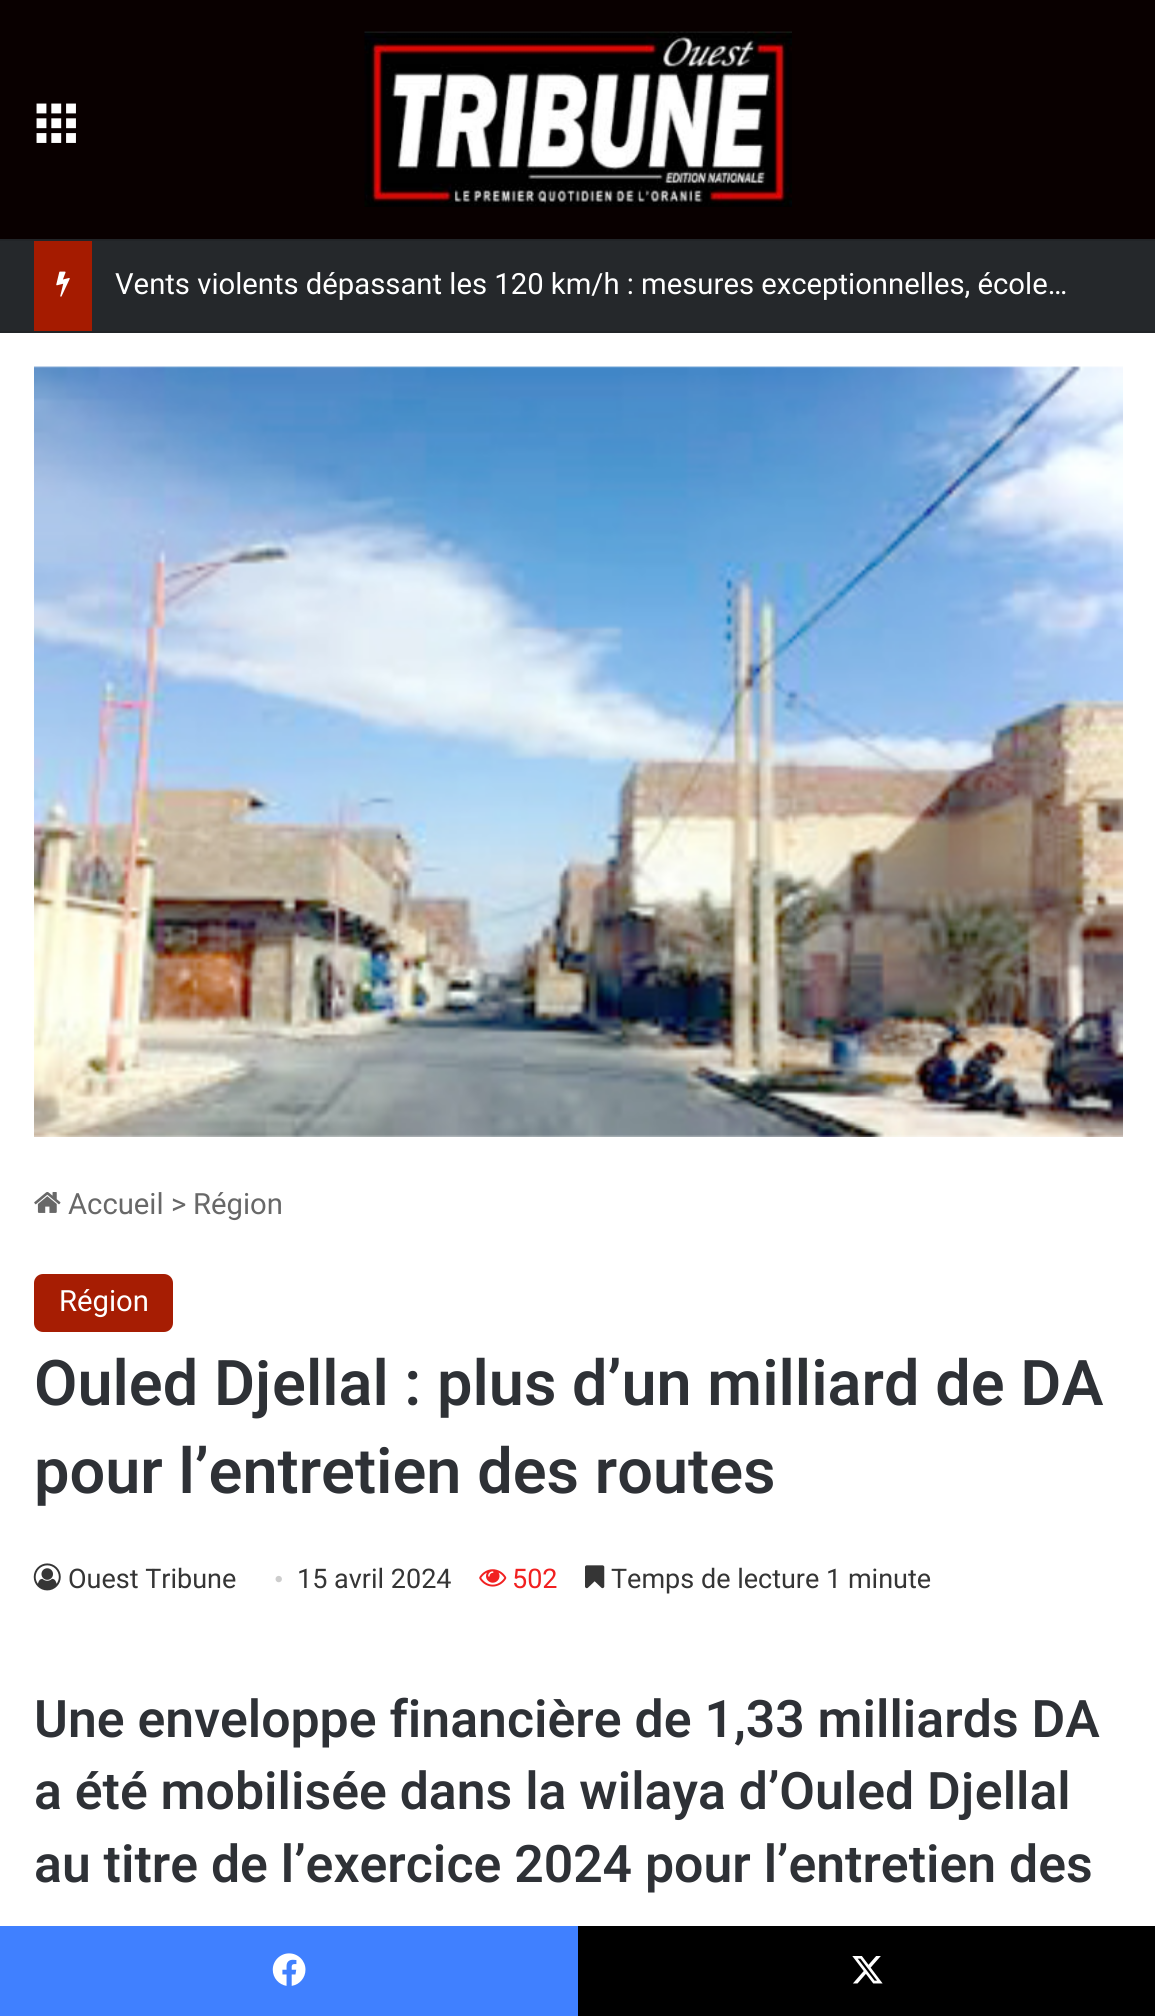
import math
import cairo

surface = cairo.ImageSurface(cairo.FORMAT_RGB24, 1155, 2016)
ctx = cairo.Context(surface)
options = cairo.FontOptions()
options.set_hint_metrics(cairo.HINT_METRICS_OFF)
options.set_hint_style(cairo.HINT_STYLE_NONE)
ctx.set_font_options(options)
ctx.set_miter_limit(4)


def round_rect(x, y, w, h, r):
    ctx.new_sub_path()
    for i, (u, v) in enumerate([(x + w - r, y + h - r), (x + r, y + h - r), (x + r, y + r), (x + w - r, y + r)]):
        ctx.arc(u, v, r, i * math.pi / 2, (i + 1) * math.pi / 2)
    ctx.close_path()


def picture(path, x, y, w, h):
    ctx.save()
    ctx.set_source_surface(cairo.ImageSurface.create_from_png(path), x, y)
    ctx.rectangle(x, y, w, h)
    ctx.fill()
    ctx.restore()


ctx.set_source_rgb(1, 1, 1)
ctx.paint()
ctx.set_source_rgb(0.039, 0, 0)
ctx.rectangle(0, 0, 1155, 239)
ctx.fill()
picture("img1.png", 36, 103, 40, 40)
picture("img2.png", 364, 31, 428, 176)
ctx.set_source_rgb(0.145, 0.157, 0.169)
ctx.rectangle(0, 241, 1155, 90)
ctx.fill()
ctx.set_source_rgb(0.129, 0.141, 0.153)
ctx.rectangle(0, 239, 1155, 2)
ctx.fill()
ctx.rectangle(0, 331, 1155, 2)
ctx.fill()
ctx.set_source_rgb(0.647, 0.106, 0)
ctx.rectangle(34, 241, 58, 90)
ctx.fill()
picture("img3.png", 56, 271, 14, 26)
ctx.select_font_face("Roboto")
ctx.set_font_size(29.25)
ctx.set_source_rgb(1, 1, 1)
ctx.move_to(115, 294)
ctx.show_text("Vents violents dépassant les 120 km/h : mesures exceptionnelles, école…")
picture("img4.png", 34, 366, 1089, 771)
picture("img5.png", 34, 1192, 27, 21)
ctx.set_source_rgb(0.408, 0.408, 0.408)
ctx.move_to(68, 1214)
ctx.show_text("Accueil")
ctx.move_to(171, 1214)
ctx.show_text(">")
ctx.move_to(193, 1214)
ctx.show_text("Région")
ctx.set_source_rgb(0.651, 0.114, 0.012)
round_rect(34, 1274, 139, 58, 9)
ctx.fill()
ctx.set_source_rgb(1, 1, 1)
ctx.move_to(59, 1311)
ctx.show_text("Région")
ctx.select_font_face("Heebo SemiBold")
ctx.set_font_size(63)
ctx.set_source_rgb(0.18, 0.192, 0.212)
ctx.move_to(34, 1405)
ctx.show_text("Ouled Djellal : plus d’un milliard de DA")
ctx.move_to(34, 1493)
ctx.show_text("pour l’entretien des routes")
picture("img6.png", 33, 1563, 28, 28)
ctx.select_font_face("Roboto")
ctx.set_font_size(27)
ctx.set_source_rgb(0.208, 0.208, 0.208)
ctx.move_to(68, 1588)
ctx.show_text("Ouest Tribune")
ctx.select_font_face("Liberation Serif")
ctx.set_source_rgb(0.804, 0.804, 0.804)
ctx.move_to(274, 1588)
ctx.show_text("•")
ctx.select_font_face("Roboto")
ctx.set_source_rgb(0.208, 0.208, 0.208)
ctx.move_to(297, 1588)
ctx.show_text("15 avril 2024")
picture("img7.png", 479, 1569, 28, 18)
ctx.set_source_rgb(0.945, 0.125, 0.125)
ctx.move_to(512, 1588)
ctx.show_text("502")
picture("img8.png", 585, 1565, 20, 24)
ctx.set_source_rgb(0.208, 0.208, 0.208)
ctx.move_to(611, 1588)
ctx.show_text("Temps de lecture 1 minute")
ctx.select_font_face("Heebo SemiBold")
ctx.set_font_size(51.75)
ctx.set_source_rgb(0.18, 0.192, 0.212)
ctx.move_to(34, 1737)
ctx.show_text("Une enveloppe financière de 1,33 milliards DA")
ctx.move_to(34, 1809)
ctx.show_text("a été mobilisée dans la wilaya d’Ouled Djellal")
ctx.move_to(34, 1882)
ctx.show_text("au titre de l’exercice 2024 pour l’entretien des")
ctx.set_source_rgb(0.251, 0.502, 1)
ctx.rectangle(0, 1926, 578, 90)
ctx.fill()
picture("img9.png", 272, 1953, 34, 33)
ctx.set_source_rgb(0, 0, 0)
ctx.rectangle(578, 1926, 577, 90)
ctx.fill()
picture("img10.png", 852, 1956, 31, 28)
surface.write_to_png("page.png")
